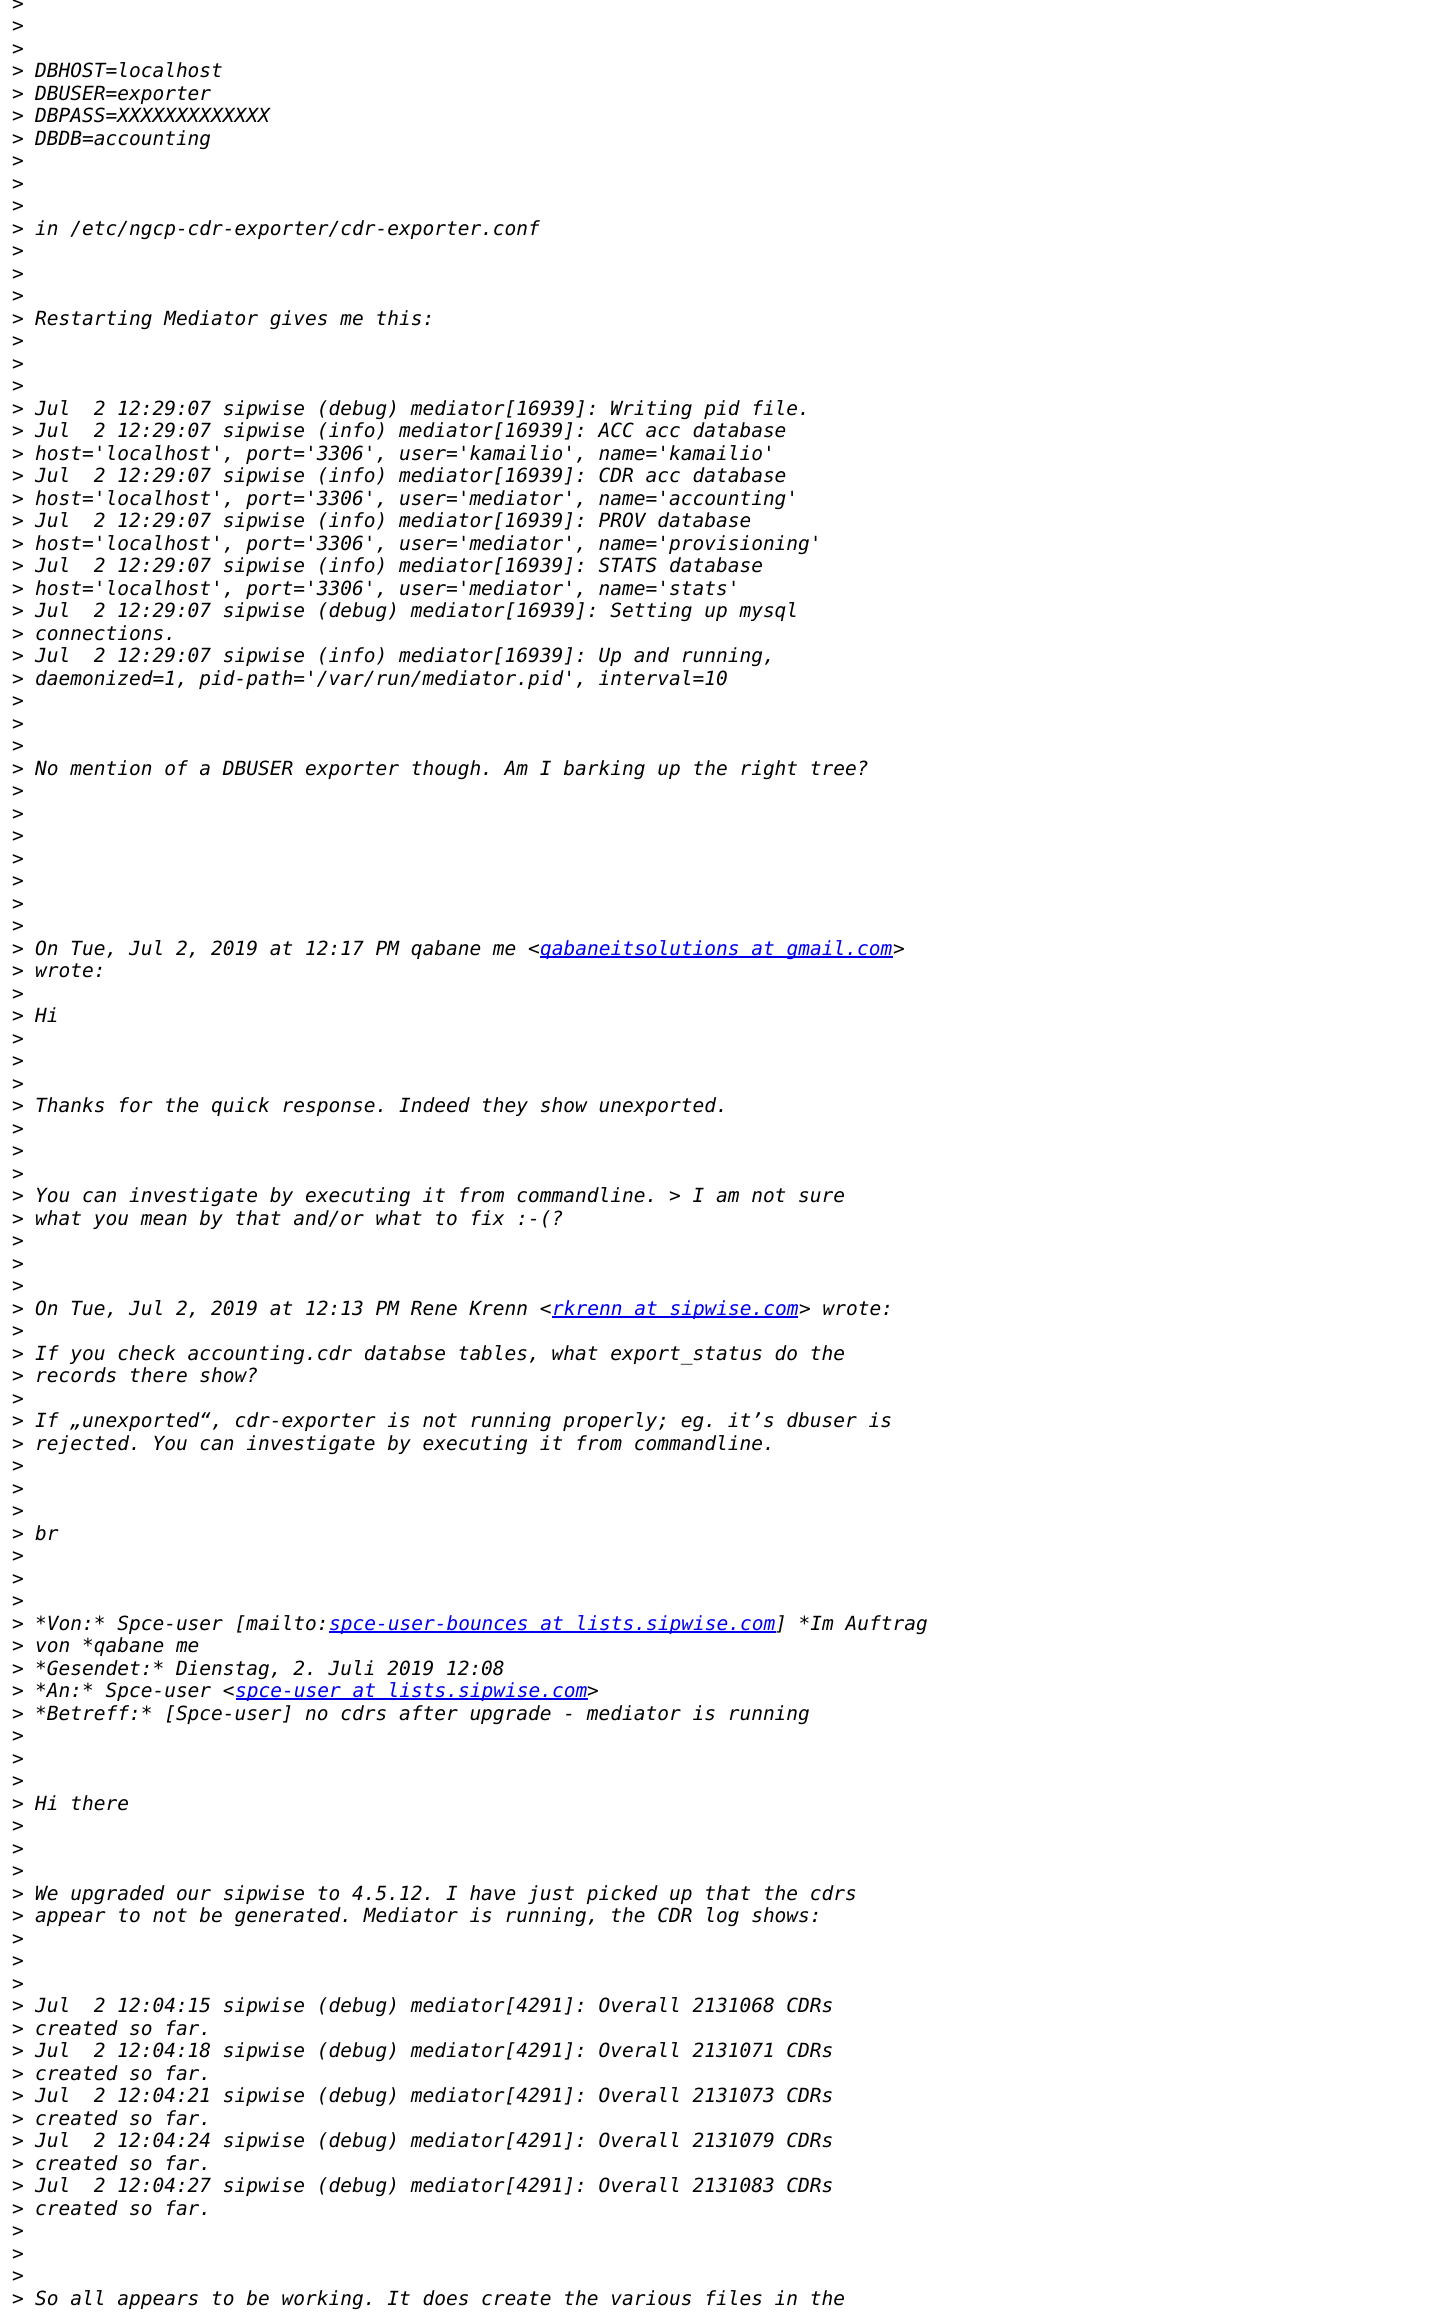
import math
import cairo

surface = cairo.ImageSurface(cairo.FORMAT_RGB24, 1444, 2315)
ctx = cairo.Context(surface)
options = cairo.FontOptions()
options.set_hint_metrics(cairo.HINT_METRICS_OFF)
options.set_hint_style(cairo.HINT_STYLE_NONE)
ctx.set_font_options(options)
ctx.set_miter_limit(4)


ctx.set_source_rgb(1, 1, 1)
ctx.paint()
ctx.select_font_face("DejaVu Sans Mono")
ctx.set_font_size(19.5)
ctx.set_source_rgb(0, 0, 0)
ctx.move_to(12, 10)
ctx.show_text(">")
ctx.move_to(12, 32)
ctx.show_text(">")
ctx.move_to(12, 55)
ctx.show_text(">")
ctx.move_to(12, 77)
ctx.show_text(">")
ctx.select_font_face("DejaVu Sans Mono", cairo.FONT_SLANT_ITALIC)
ctx.move_to(35, 77)
ctx.show_text("DBHOST=localhost")
ctx.select_font_face("DejaVu Sans Mono")
ctx.move_to(12, 100)
ctx.show_text(">")
ctx.select_font_face("DejaVu Sans Mono", cairo.FONT_SLANT_ITALIC)
ctx.move_to(35, 100)
ctx.show_text("DBUSER=exporter")
ctx.select_font_face("DejaVu Sans Mono")
ctx.move_to(12, 122)
ctx.show_text(">")
ctx.select_font_face("DejaVu Sans Mono", cairo.FONT_SLANT_ITALIC)
ctx.move_to(35, 122)
ctx.show_text("DBPASS=XXXXXXXXXXXXX")
ctx.select_font_face("DejaVu Sans Mono")
ctx.move_to(12, 145)
ctx.show_text(">")
ctx.select_font_face("DejaVu Sans Mono", cairo.FONT_SLANT_ITALIC)
ctx.move_to(35, 145)
ctx.show_text("DBDB=accounting")
ctx.select_font_face("DejaVu Sans Mono")
ctx.move_to(12, 167)
ctx.show_text(">")
ctx.move_to(12, 190)
ctx.show_text(">")
ctx.move_to(12, 212)
ctx.show_text(">")
ctx.move_to(12, 235)
ctx.show_text(">")
ctx.select_font_face("DejaVu Sans Mono", cairo.FONT_SLANT_ITALIC)
ctx.move_to(35, 235)
ctx.show_text("in /etc/ngcp-cdr-exporter/cdr-exporter.conf")
ctx.select_font_face("DejaVu Sans Mono")
ctx.move_to(12, 257)
ctx.show_text(">")
ctx.move_to(12, 280)
ctx.show_text(">")
ctx.move_to(12, 302)
ctx.show_text(">")
ctx.move_to(12, 325)
ctx.show_text(">")
ctx.select_font_face("DejaVu Sans Mono", cairo.FONT_SLANT_ITALIC)
ctx.move_to(35, 325)
ctx.show_text("Restarting Mediator gives me this:")
ctx.select_font_face("DejaVu Sans Mono")
ctx.move_to(12, 347)
ctx.show_text(">")
ctx.move_to(12, 370)
ctx.show_text(">")
ctx.move_to(12, 392)
ctx.show_text(">")
ctx.move_to(12, 415)
ctx.show_text(">")
ctx.select_font_face("DejaVu Sans Mono", cairo.FONT_SLANT_ITALIC)
ctx.move_to(35, 415)
ctx.show_text("Jul  2 12:29:07 sipwise (debug) mediator[16939]: Writing pid file.")
ctx.select_font_face("DejaVu Sans Mono")
ctx.move_to(12, 437)
ctx.show_text(">")
ctx.select_font_face("DejaVu Sans Mono", cairo.FONT_SLANT_ITALIC)
ctx.move_to(35, 437)
ctx.show_text("Jul  2 12:29:07 sipwise (info) mediator[16939]: ACC acc database")
ctx.select_font_face("DejaVu Sans Mono")
ctx.move_to(12, 460)
ctx.show_text(">")
ctx.select_font_face("DejaVu Sans Mono", cairo.FONT_SLANT_ITALIC)
ctx.move_to(35, 460)
ctx.show_text("host='localhost', port='3306', user='kamailio', name='kamailio'")
ctx.select_font_face("DejaVu Sans Mono")
ctx.move_to(12, 482)
ctx.show_text(">")
ctx.select_font_face("DejaVu Sans Mono", cairo.FONT_SLANT_ITALIC)
ctx.move_to(35, 482)
ctx.show_text("Jul  2 12:29:07 sipwise (info) mediator[16939]: CDR acc database")
ctx.select_font_face("DejaVu Sans Mono")
ctx.move_to(12, 505)
ctx.show_text(">")
ctx.select_font_face("DejaVu Sans Mono", cairo.FONT_SLANT_ITALIC)
ctx.move_to(35, 505)
ctx.show_text("host='localhost', port='3306', user='mediator', name='accounting'")
ctx.select_font_face("DejaVu Sans Mono")
ctx.move_to(12, 527)
ctx.show_text(">")
ctx.select_font_face("DejaVu Sans Mono", cairo.FONT_SLANT_ITALIC)
ctx.move_to(35, 527)
ctx.show_text("Jul  2 12:29:07 sipwise (info) mediator[16939]: PROV database")
ctx.select_font_face("DejaVu Sans Mono")
ctx.move_to(12, 550)
ctx.show_text(">")
ctx.select_font_face("DejaVu Sans Mono", cairo.FONT_SLANT_ITALIC)
ctx.move_to(35, 550)
ctx.show_text("host='localhost', port='3306', user='mediator', name='provisioning'")
ctx.select_font_face("DejaVu Sans Mono")
ctx.move_to(12, 572)
ctx.show_text(">")
ctx.select_font_face("DejaVu Sans Mono", cairo.FONT_SLANT_ITALIC)
ctx.move_to(35, 572)
ctx.show_text("Jul  2 12:29:07 sipwise (info) mediator[16939]: STATS database")
ctx.select_font_face("DejaVu Sans Mono")
ctx.move_to(12, 595)
ctx.show_text(">")
ctx.select_font_face("DejaVu Sans Mono", cairo.FONT_SLANT_ITALIC)
ctx.move_to(35, 595)
ctx.show_text("host='localhost', port='3306', user='mediator', name='stats'")
ctx.select_font_face("DejaVu Sans Mono")
ctx.move_to(12, 617)
ctx.show_text(">")
ctx.select_font_face("DejaVu Sans Mono", cairo.FONT_SLANT_ITALIC)
ctx.move_to(35, 617)
ctx.show_text("Jul  2 12:29:07 sipwise (debug) mediator[16939]: Setting up mysql")
ctx.select_font_face("DejaVu Sans Mono")
ctx.move_to(12, 640)
ctx.show_text(">")
ctx.select_font_face("DejaVu Sans Mono", cairo.FONT_SLANT_ITALIC)
ctx.move_to(35, 640)
ctx.show_text("connections.")
ctx.select_font_face("DejaVu Sans Mono")
ctx.move_to(12, 662)
ctx.show_text(">")
ctx.select_font_face("DejaVu Sans Mono", cairo.FONT_SLANT_ITALIC)
ctx.move_to(35, 662)
ctx.show_text("Jul  2 12:29:07 sipwise (info) mediator[16939]: Up and running,")
ctx.select_font_face("DejaVu Sans Mono")
ctx.move_to(12, 685)
ctx.show_text(">")
ctx.select_font_face("DejaVu Sans Mono", cairo.FONT_SLANT_ITALIC)
ctx.move_to(35, 685)
ctx.show_text("daemonized=1, pid-path='/var/run/mediator.pid', interval=10")
ctx.select_font_face("DejaVu Sans Mono")
ctx.move_to(12, 707)
ctx.show_text(">")
ctx.move_to(12, 730)
ctx.show_text(">")
ctx.move_to(12, 752)
ctx.show_text(">")
ctx.move_to(12, 775)
ctx.show_text(">")
ctx.select_font_face("DejaVu Sans Mono", cairo.FONT_SLANT_ITALIC)
ctx.move_to(35, 775)
ctx.show_text("No mention of a DBUSER exporter though. Am I barking up the right tree?")
ctx.select_font_face("DejaVu Sans Mono")
ctx.move_to(12, 797)
ctx.show_text(">")
ctx.move_to(12, 820)
ctx.show_text(">")
ctx.move_to(12, 842)
ctx.show_text(">")
ctx.move_to(12, 865)
ctx.show_text(">")
ctx.move_to(12, 887)
ctx.show_text(">")
ctx.move_to(12, 910)
ctx.show_text(">")
ctx.move_to(12, 932)
ctx.show_text(">")
ctx.move_to(12, 955)
ctx.show_text(">")
ctx.select_font_face("DejaVu Sans Mono", cairo.FONT_SLANT_ITALIC)
ctx.move_to(35, 955)
ctx.show_text("On Tue, Jul 2, 2019 at 12:17 PM qabane me <")
ctx.set_source_rgb(0, 0, 0.933)
ctx.rectangle(540, 956, 353, 2)
ctx.fill()
ctx.move_to(540, 955)
ctx.show_text("qabaneitsolutions at gmail.com")
ctx.set_source_rgb(0, 0, 0)
ctx.move_to(893, 955)
ctx.show_text(">")
ctx.select_font_face("DejaVu Sans Mono")
ctx.move_to(12, 977)
ctx.show_text(">")
ctx.select_font_face("DejaVu Sans Mono", cairo.FONT_SLANT_ITALIC)
ctx.move_to(35, 977)
ctx.show_text("wrote:")
ctx.select_font_face("DejaVu Sans Mono")
ctx.move_to(12, 1000)
ctx.show_text(">")
ctx.move_to(12, 1022)
ctx.show_text(">")
ctx.select_font_face("DejaVu Sans Mono", cairo.FONT_SLANT_ITALIC)
ctx.move_to(35, 1022)
ctx.show_text("Hi")
ctx.select_font_face("DejaVu Sans Mono")
ctx.move_to(12, 1045)
ctx.show_text(">")
ctx.move_to(12, 1067)
ctx.show_text(">")
ctx.move_to(12, 1090)
ctx.show_text(">")
ctx.move_to(12, 1112)
ctx.show_text(">")
ctx.select_font_face("DejaVu Sans Mono", cairo.FONT_SLANT_ITALIC)
ctx.move_to(35, 1112)
ctx.show_text("Thanks for the quick response. Indeed they show unexported.")
ctx.select_font_face("DejaVu Sans Mono")
ctx.move_to(12, 1135)
ctx.show_text(">")
ctx.move_to(12, 1157)
ctx.show_text(">")
ctx.move_to(12, 1180)
ctx.show_text(">")
ctx.move_to(12, 1202)
ctx.show_text(">")
ctx.select_font_face("DejaVu Sans Mono", cairo.FONT_SLANT_ITALIC)
ctx.move_to(35, 1202)
ctx.show_text("You can investigate by executing it from commandline. > I am not sure")
ctx.select_font_face("DejaVu Sans Mono")
ctx.move_to(12, 1225)
ctx.show_text(">")
ctx.select_font_face("DejaVu Sans Mono", cairo.FONT_SLANT_ITALIC)
ctx.move_to(35, 1225)
ctx.show_text("what you mean by that and/or what to fix :-(?")
ctx.select_font_face("DejaVu Sans Mono")
ctx.move_to(12, 1247)
ctx.show_text(">")
ctx.move_to(12, 1270)
ctx.show_text(">")
ctx.move_to(12, 1292)
ctx.show_text(">")
ctx.move_to(12, 1315)
ctx.show_text(">")
ctx.select_font_face("DejaVu Sans Mono", cairo.FONT_SLANT_ITALIC)
ctx.move_to(35, 1315)
ctx.show_text("On Tue, Jul 2, 2019 at 12:13 PM Rene Krenn <")
ctx.set_source_rgb(0, 0, 0.933)
ctx.rectangle(552, 1316, 246, 2)
ctx.fill()
ctx.move_to(552, 1315)
ctx.show_text("rkrenn at sipwise.com")
ctx.set_source_rgb(0, 0, 0)
ctx.move_to(799, 1315)
ctx.show_text("> wrote:")
ctx.select_font_face("DejaVu Sans Mono")
ctx.move_to(12, 1337)
ctx.show_text(">")
ctx.move_to(12, 1360)
ctx.show_text(">")
ctx.select_font_face("DejaVu Sans Mono", cairo.FONT_SLANT_ITALIC)
ctx.move_to(35, 1360)
ctx.show_text("If you check accounting.cdr databse tables, what export_status do the")
ctx.select_font_face("DejaVu Sans Mono")
ctx.move_to(12, 1382)
ctx.show_text(">")
ctx.select_font_face("DejaVu Sans Mono", cairo.FONT_SLANT_ITALIC)
ctx.move_to(35, 1382)
ctx.show_text("records there show?")
ctx.select_font_face("DejaVu Sans Mono")
ctx.move_to(12, 1405)
ctx.show_text(">")
ctx.move_to(12, 1427)
ctx.show_text(">")
ctx.select_font_face("DejaVu Sans Mono", cairo.FONT_SLANT_ITALIC)
ctx.move_to(35, 1427)
ctx.show_text("If „unexported“, cdr-exporter is not running properly; eg. it’s dbuser is")
ctx.select_font_face("DejaVu Sans Mono")
ctx.move_to(12, 1450)
ctx.show_text(">")
ctx.select_font_face("DejaVu Sans Mono", cairo.FONT_SLANT_ITALIC)
ctx.move_to(35, 1450)
ctx.show_text("rejected. You can investigate by executing it from commandline.")
ctx.select_font_face("DejaVu Sans Mono")
ctx.move_to(12, 1472)
ctx.show_text(">")
ctx.move_to(12, 1495)
ctx.show_text(">")
ctx.move_to(12, 1517)
ctx.show_text(">")
ctx.move_to(12, 1540)
ctx.show_text(">")
ctx.select_font_face("DejaVu Sans Mono", cairo.FONT_SLANT_ITALIC)
ctx.move_to(35, 1540)
ctx.show_text("br")
ctx.select_font_face("DejaVu Sans Mono")
ctx.move_to(12, 1562)
ctx.show_text(">")
ctx.move_to(12, 1585)
ctx.show_text(">")
ctx.move_to(12, 1607)
ctx.show_text(">")
ctx.move_to(12, 1630)
ctx.show_text(">")
ctx.select_font_face("DejaVu Sans Mono", cairo.FONT_SLANT_ITALIC)
ctx.move_to(35, 1630)
ctx.show_text("*Von:* Spce-user [mailto:")
ctx.set_source_rgb(0, 0, 0.933)
ctx.rectangle(329, 1631, 447, 2)
ctx.fill()
ctx.move_to(329, 1630)
ctx.show_text("spce-user-bounces at lists.sipwise.com")
ctx.set_source_rgb(0, 0, 0)
ctx.move_to(775, 1630)
ctx.show_text("] *Im Auftrag")
ctx.select_font_face("DejaVu Sans Mono")
ctx.move_to(12, 1652)
ctx.show_text(">")
ctx.select_font_face("DejaVu Sans Mono", cairo.FONT_SLANT_ITALIC)
ctx.move_to(35, 1652)
ctx.show_text("von *qabane me")
ctx.select_font_face("DejaVu Sans Mono")
ctx.move_to(12, 1675)
ctx.show_text(">")
ctx.select_font_face("DejaVu Sans Mono", cairo.FONT_SLANT_ITALIC)
ctx.move_to(35, 1675)
ctx.show_text("*Gesendet:* Dienstag, 2. Juli 2019 12:08")
ctx.select_font_face("DejaVu Sans Mono")
ctx.move_to(12, 1697)
ctx.show_text(">")
ctx.select_font_face("DejaVu Sans Mono", cairo.FONT_SLANT_ITALIC)
ctx.move_to(35, 1697)
ctx.show_text("*An:* Spce-user <")
ctx.set_source_rgb(0, 0, 0.933)
ctx.rectangle(236, 1698, 352, 2)
ctx.fill()
ctx.move_to(235, 1697)
ctx.show_text("spce-user at lists.sipwise.com")
ctx.set_source_rgb(0, 0, 0)
ctx.move_to(587, 1697)
ctx.show_text(">")
ctx.select_font_face("DejaVu Sans Mono")
ctx.move_to(12, 1720)
ctx.show_text(">")
ctx.select_font_face("DejaVu Sans Mono", cairo.FONT_SLANT_ITALIC)
ctx.move_to(35, 1720)
ctx.show_text("*Betreff:* [Spce-user] no cdrs after upgrade - mediator is running")
ctx.select_font_face("DejaVu Sans Mono")
ctx.move_to(12, 1742)
ctx.show_text(">")
ctx.move_to(12, 1765)
ctx.show_text(">")
ctx.move_to(12, 1787)
ctx.show_text(">")
ctx.move_to(12, 1810)
ctx.show_text(">")
ctx.select_font_face("DejaVu Sans Mono", cairo.FONT_SLANT_ITALIC)
ctx.move_to(35, 1810)
ctx.show_text("Hi there")
ctx.select_font_face("DejaVu Sans Mono")
ctx.move_to(12, 1832)
ctx.show_text(">")
ctx.move_to(12, 1855)
ctx.show_text(">")
ctx.move_to(12, 1877)
ctx.show_text(">")
ctx.move_to(12, 1900)
ctx.show_text(">")
ctx.select_font_face("DejaVu Sans Mono", cairo.FONT_SLANT_ITALIC)
ctx.move_to(35, 1900)
ctx.show_text("We upgraded our sipwise to 4.5.12. I have just picked up that the cdrs")
ctx.select_font_face("DejaVu Sans Mono")
ctx.move_to(12, 1922)
ctx.show_text(">")
ctx.select_font_face("DejaVu Sans Mono", cairo.FONT_SLANT_ITALIC)
ctx.move_to(35, 1922)
ctx.show_text("appear to not be generated. Mediator is running, the CDR log shows:")
ctx.select_font_face("DejaVu Sans Mono")
ctx.move_to(12, 1945)
ctx.show_text(">")
ctx.move_to(12, 1967)
ctx.show_text(">")
ctx.move_to(12, 1990)
ctx.show_text(">")
ctx.move_to(12, 2012)
ctx.show_text(">")
ctx.select_font_face("DejaVu Sans Mono", cairo.FONT_SLANT_ITALIC)
ctx.move_to(35, 2012)
ctx.show_text("Jul  2 12:04:15 sipwise (debug) mediator[4291]: Overall 2131068 CDRs")
ctx.select_font_face("DejaVu Sans Mono")
ctx.move_to(12, 2035)
ctx.show_text(">")
ctx.select_font_face("DejaVu Sans Mono", cairo.FONT_SLANT_ITALIC)
ctx.move_to(35, 2035)
ctx.show_text("created so far.")
ctx.select_font_face("DejaVu Sans Mono")
ctx.move_to(12, 2057)
ctx.show_text(">")
ctx.select_font_face("DejaVu Sans Mono", cairo.FONT_SLANT_ITALIC)
ctx.move_to(35, 2057)
ctx.show_text("Jul  2 12:04:18 sipwise (debug) mediator[4291]: Overall 2131071 CDRs")
ctx.select_font_face("DejaVu Sans Mono")
ctx.move_to(12, 2080)
ctx.show_text(">")
ctx.select_font_face("DejaVu Sans Mono", cairo.FONT_SLANT_ITALIC)
ctx.move_to(35, 2080)
ctx.show_text("created so far.")
ctx.select_font_face("DejaVu Sans Mono")
ctx.move_to(12, 2102)
ctx.show_text(">")
ctx.select_font_face("DejaVu Sans Mono", cairo.FONT_SLANT_ITALIC)
ctx.move_to(35, 2102)
ctx.show_text("Jul  2 12:04:21 sipwise (debug) mediator[4291]: Overall 2131073 CDRs")
ctx.select_font_face("DejaVu Sans Mono")
ctx.move_to(12, 2125)
ctx.show_text(">")
ctx.select_font_face("DejaVu Sans Mono", cairo.FONT_SLANT_ITALIC)
ctx.move_to(35, 2125)
ctx.show_text("created so far.")
ctx.select_font_face("DejaVu Sans Mono")
ctx.move_to(12, 2147)
ctx.show_text(">")
ctx.select_font_face("DejaVu Sans Mono", cairo.FONT_SLANT_ITALIC)
ctx.move_to(35, 2147)
ctx.show_text("Jul  2 12:04:24 sipwise (debug) mediator[4291]: Overall 2131079 CDRs")
ctx.select_font_face("DejaVu Sans Mono")
ctx.move_to(12, 2170)
ctx.show_text(">")
ctx.select_font_face("DejaVu Sans Mono", cairo.FONT_SLANT_ITALIC)
ctx.move_to(35, 2170)
ctx.show_text("created so far.")
ctx.select_font_face("DejaVu Sans Mono")
ctx.move_to(12, 2192)
ctx.show_text(">")
ctx.select_font_face("DejaVu Sans Mono", cairo.FONT_SLANT_ITALIC)
ctx.move_to(35, 2192)
ctx.show_text("Jul  2 12:04:27 sipwise (debug) mediator[4291]: Overall 2131083 CDRs")
ctx.select_font_face("DejaVu Sans Mono")
ctx.move_to(12, 2215)
ctx.show_text(">")
ctx.select_font_face("DejaVu Sans Mono", cairo.FONT_SLANT_ITALIC)
ctx.move_to(35, 2215)
ctx.show_text("created so far.")
ctx.select_font_face("DejaVu Sans Mono")
ctx.move_to(12, 2237)
ctx.show_text(">")
ctx.move_to(12, 2260)
ctx.show_text(">")
ctx.move_to(12, 2282)
ctx.show_text(">")
ctx.move_to(12, 2305)
ctx.show_text(">")
ctx.select_font_face("DejaVu Sans Mono", cairo.FONT_SLANT_ITALIC)
ctx.move_to(35, 2305)
ctx.show_text("So all appears to be working. It does create the various files in the")
surface.write_to_png("page.png")
